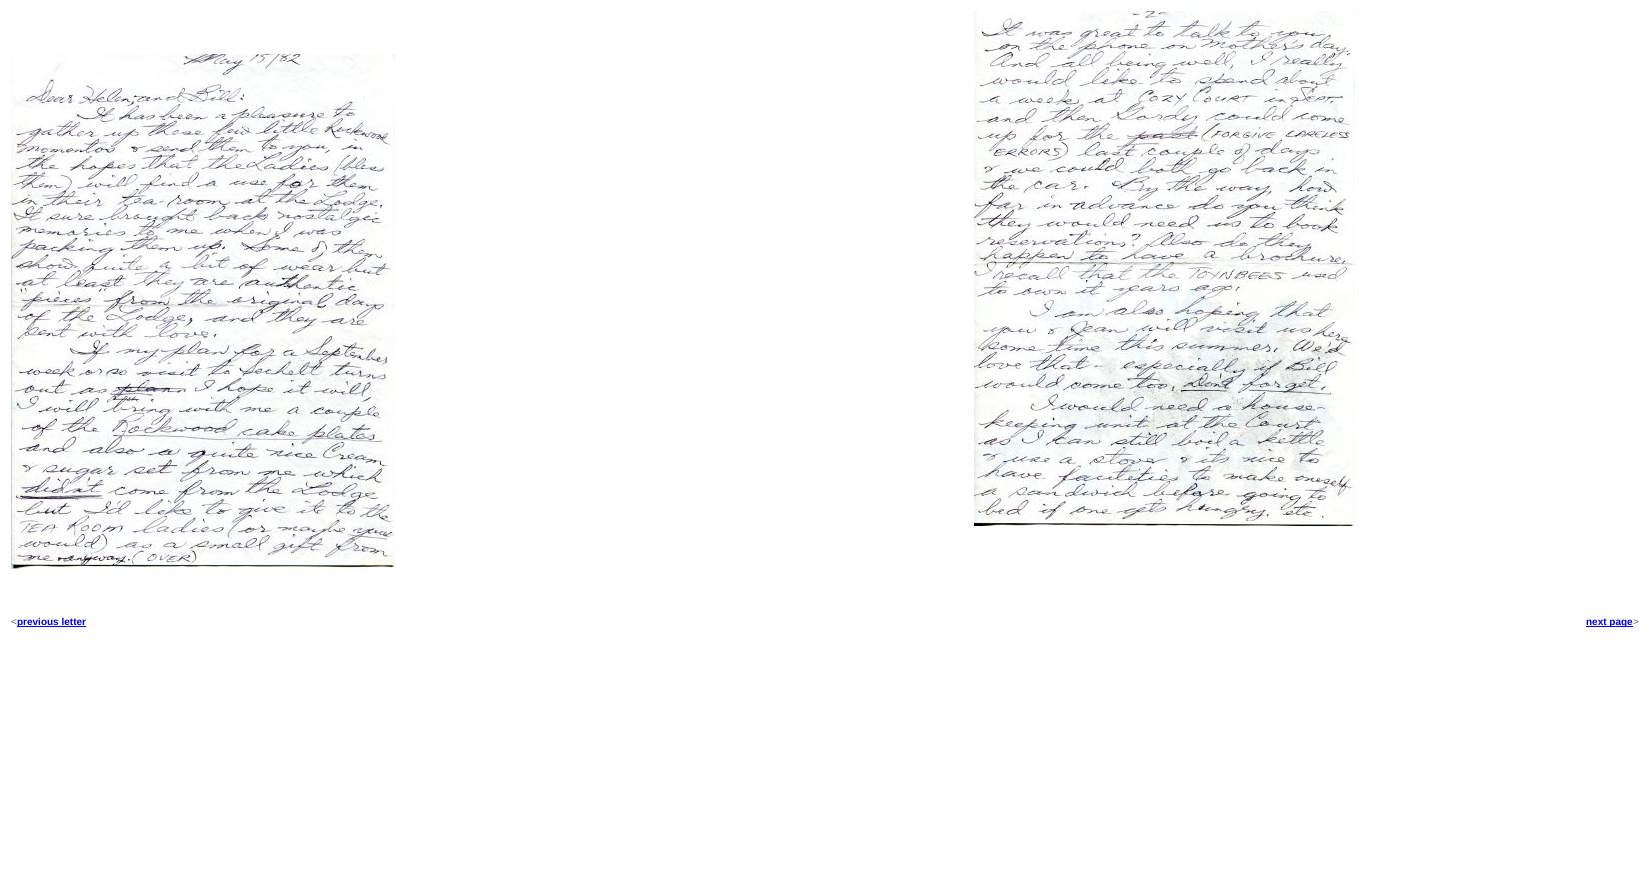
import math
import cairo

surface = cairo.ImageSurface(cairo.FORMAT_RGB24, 1650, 884)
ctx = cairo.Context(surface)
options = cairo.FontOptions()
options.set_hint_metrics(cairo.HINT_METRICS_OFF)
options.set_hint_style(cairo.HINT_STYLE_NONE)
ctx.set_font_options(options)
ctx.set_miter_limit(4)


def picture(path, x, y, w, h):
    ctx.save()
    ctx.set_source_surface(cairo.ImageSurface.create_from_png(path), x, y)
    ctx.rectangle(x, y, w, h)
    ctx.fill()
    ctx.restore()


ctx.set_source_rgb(1, 1, 1)
ctx.paint()
picture("img1.png", 11, 54, 384, 515)
picture("img2.png", 974, 11, 384, 515)
ctx.select_font_face("Liberation Sans")
ctx.set_font_size(10)
ctx.set_source_rgb(0.4, 0.4, 0.4)
ctx.move_to(11, 625)
ctx.show_text("<")
ctx.set_source_rgb(0, 0, 0.933)
ctx.rectangle(17, 626, 69, 1)
ctx.fill()
ctx.select_font_face("Liberation Sans", cairo.FONT_SLANT_NORMAL, cairo.FONT_WEIGHT_BOLD)
ctx.move_to(17, 625)
ctx.show_text("previous letter")
ctx.rectangle(1586, 626, 47, 1)
ctx.fill()
ctx.move_to(1586, 625)
ctx.show_text("next page")
ctx.select_font_face("Liberation Sans")
ctx.set_source_rgb(0.4, 0.4, 0.4)
ctx.move_to(1633, 625)
ctx.show_text(">")
surface.write_to_png("page.png")
